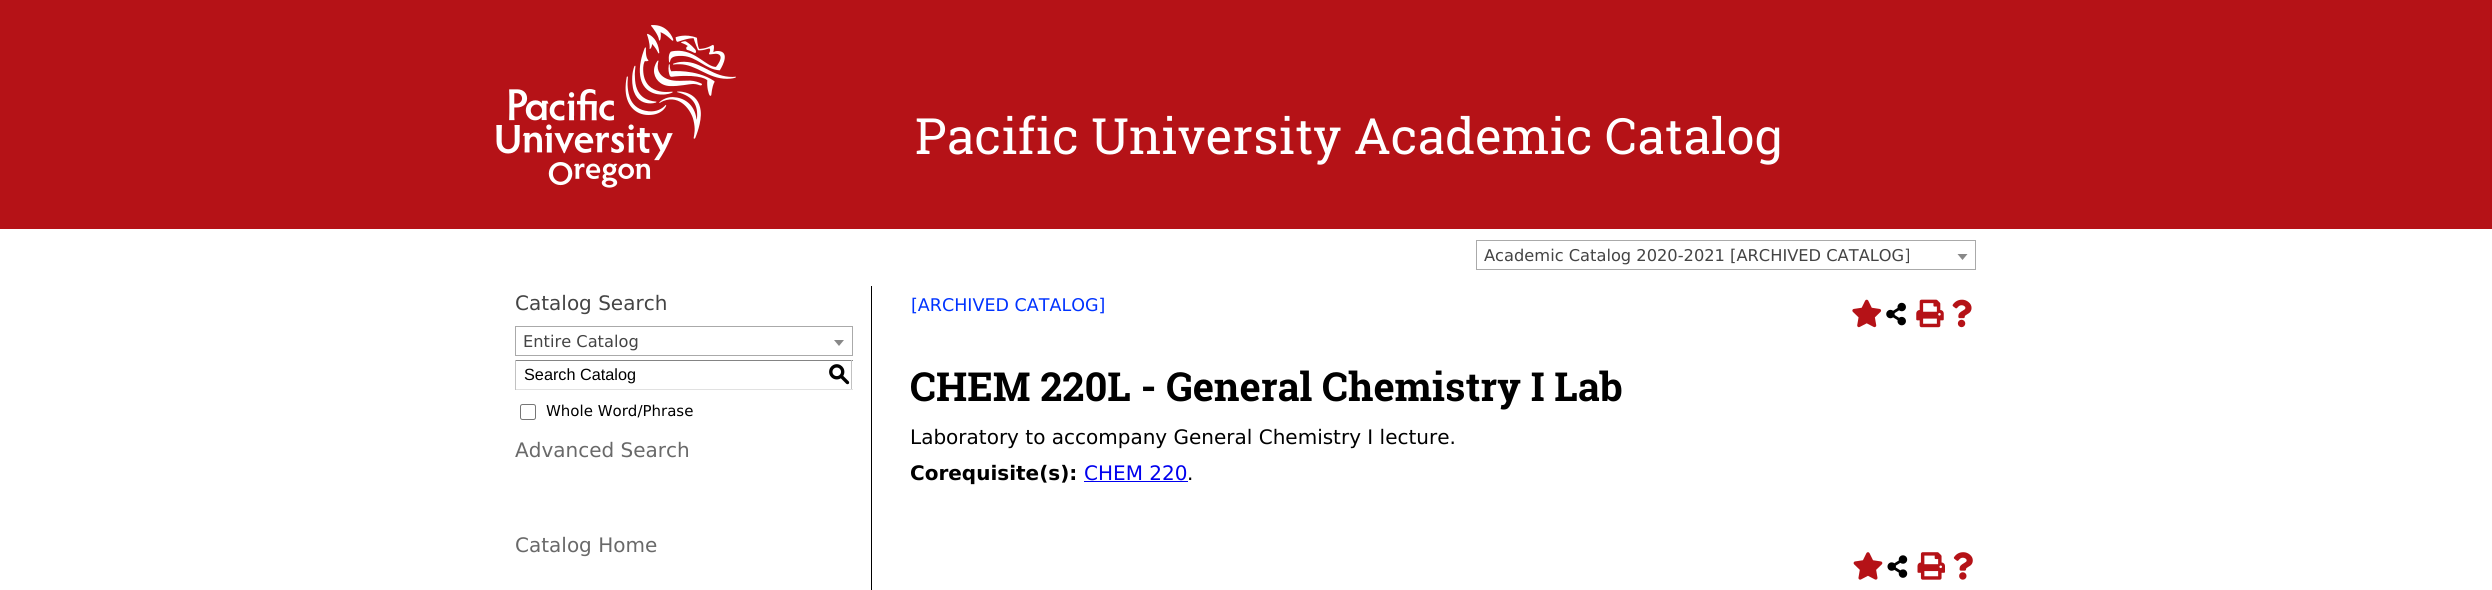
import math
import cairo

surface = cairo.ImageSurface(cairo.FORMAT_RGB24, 2492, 590)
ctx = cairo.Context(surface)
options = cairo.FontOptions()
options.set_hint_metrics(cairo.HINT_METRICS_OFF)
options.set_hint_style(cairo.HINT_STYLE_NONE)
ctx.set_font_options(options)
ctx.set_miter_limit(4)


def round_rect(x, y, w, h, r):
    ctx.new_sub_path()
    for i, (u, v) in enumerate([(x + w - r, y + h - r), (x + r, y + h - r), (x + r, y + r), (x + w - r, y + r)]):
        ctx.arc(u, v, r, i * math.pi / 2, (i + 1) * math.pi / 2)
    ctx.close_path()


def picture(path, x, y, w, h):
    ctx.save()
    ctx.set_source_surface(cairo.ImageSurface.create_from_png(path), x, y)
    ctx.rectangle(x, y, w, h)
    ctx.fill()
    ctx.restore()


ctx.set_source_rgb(1, 1, 1)
ctx.paint()
ctx.set_source_rgb(0.71, 0.071, 0.09)
ctx.rectangle(0, 0, 2492, 229)
ctx.fill()
picture("img1.png", 496, 25, 240, 163)
ctx.select_font_face("Roboto Slab")
ctx.set_font_size(50)
ctx.set_source_rgb(1, 1, 1)
ctx.move_to(915, 154)
ctx.show_text("Pacific University Academic Catalog")
ctx.rectangle(1476.5, 240.5, 499, 29)
ctx.set_source_rgb(0.667, 0.667, 0.667)
ctx.set_line_width(1)
ctx.stroke()
ctx.select_font_face("DejaVu Sans")
ctx.set_font_size(16.25)
ctx.set_source_rgb(0.267, 0.267, 0.267)
ctx.move_to(1484, 261)
ctx.show_text("Academic Catalog 2020-2021 [ARCHIVED CATALOG]")
ctx.set_source_rgb(0.533, 0.533, 0.533)
ctx.new_path()
ctx.move_to(1957.5, 254)
ctx.line_to(1967.5, 254)
ctx.line_to(1962.5, 260)
ctx.close_path()
ctx.fill()
ctx.set_font_size(20)
ctx.set_source_rgb(0.267, 0.267, 0.267)
ctx.move_to(515, 310)
ctx.show_text("Catalog Search")
ctx.rectangle(515.5, 326.5, 337, 29)
ctx.set_source_rgb(0.667, 0.667, 0.667)
ctx.stroke()
ctx.set_font_size(16.25)
ctx.set_source_rgb(0.267, 0.267, 0.267)
ctx.move_to(523, 347)
ctx.show_text("Entire Catalog")
ctx.set_source_rgb(0.533, 0.533, 0.533)
ctx.new_path()
ctx.move_to(834, 340)
ctx.line_to(844, 340)
ctx.line_to(839, 346)
ctx.close_path()
ctx.fill()
ctx.set_source_rgb(0.518, 0.518, 0.518)
ctx.rectangle(515, 360, 338, 1)
ctx.fill()
ctx.set_source_rgb(0.757, 0.757, 0.757)
ctx.rectangle(851, 360, 1, 30)
ctx.fill()
ctx.set_source_rgb(0.882, 0.882, 0.882)
ctx.rectangle(515, 389, 338, 1)
ctx.fill()
ctx.set_source_rgb(0.757, 0.757, 0.757)
ctx.rectangle(515, 360, 1, 30)
ctx.fill()
ctx.select_font_face("Liberation Sans")
ctx.set_source_rgb(0, 0, 0)
ctx.move_to(524, 380)
ctx.show_text("Search Catalog")
ctx.select_font_face("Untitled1 Medium")
ctx.set_font_size(22)
ctx.move_to(828, 381)
ctx.show_text("S")
round_rect(520.5, 404.5, 15, 15, 2)
ctx.set_source_rgb(0.463, 0.463, 0.463)
ctx.stroke()
ctx.select_font_face("DejaVu Sans")
ctx.set_font_size(15)
ctx.set_source_rgb(0, 0, 0)
ctx.move_to(546, 416)
ctx.show_text("Whole Word/Phrase")
ctx.set_font_size(20)
ctx.set_source_rgb(0.412, 0.412, 0.412)
ctx.move_to(515, 457)
ctx.show_text("Advanced Search")
ctx.move_to(515, 552)
ctx.show_text("Catalog Home")
ctx.set_source_rgb(0, 0, 0)
ctx.rectangle(871, 286, 1, 304)
ctx.fill()
ctx.set_font_size(17.5)
ctx.set_source_rgb(0, 0.2, 1)
ctx.move_to(911, 311)
ctx.show_text("[ARCHIVED CATALOG]")
picture("img2.png", 1852, 299, 30, 29)
picture("img3.png", 1886, 302, 20, 24)
picture("img4.png", 1916, 299, 28, 29)
picture("img5.png", 1952, 299, 20, 29)
ctx.select_font_face("Roboto Slab", cairo.FONT_SLANT_NORMAL, cairo.FONT_WEIGHT_BOLD)
ctx.set_font_size(40)
ctx.set_source_rgb(0, 0, 0)
ctx.move_to(910, 401)
ctx.show_text("CHEM 220L - General Chemistry I Lab")
ctx.select_font_face("DejaVu Sans")
ctx.set_font_size(20)
ctx.move_to(910, 444)
ctx.show_text("Laboratory to accompany General Chemistry I lecture.")
ctx.select_font_face("DejaVu Sans", cairo.FONT_SLANT_NORMAL, cairo.FONT_WEIGHT_BOLD)
ctx.move_to(910, 480)
ctx.show_text("Corequisite(s):")
ctx.select_font_face("DejaVu Sans")
ctx.set_source_rgb(0, 0, 0.933)
ctx.move_to(1084, 480)
ctx.show_text("CHEM 220")
ctx.rectangle(1084, 481, 104, 1)
ctx.fill()
ctx.set_source_rgb(0, 0, 0)
ctx.move_to(1187, 480)
ctx.show_text(".")
picture("img6.png", 1853, 552, 30, 28)
picture("img7.png", 1887, 555, 21, 23)
picture("img8.png", 1917, 552, 28, 28)
picture("img9.png", 1953, 552, 20, 28)
surface.write_to_png("page.png")
